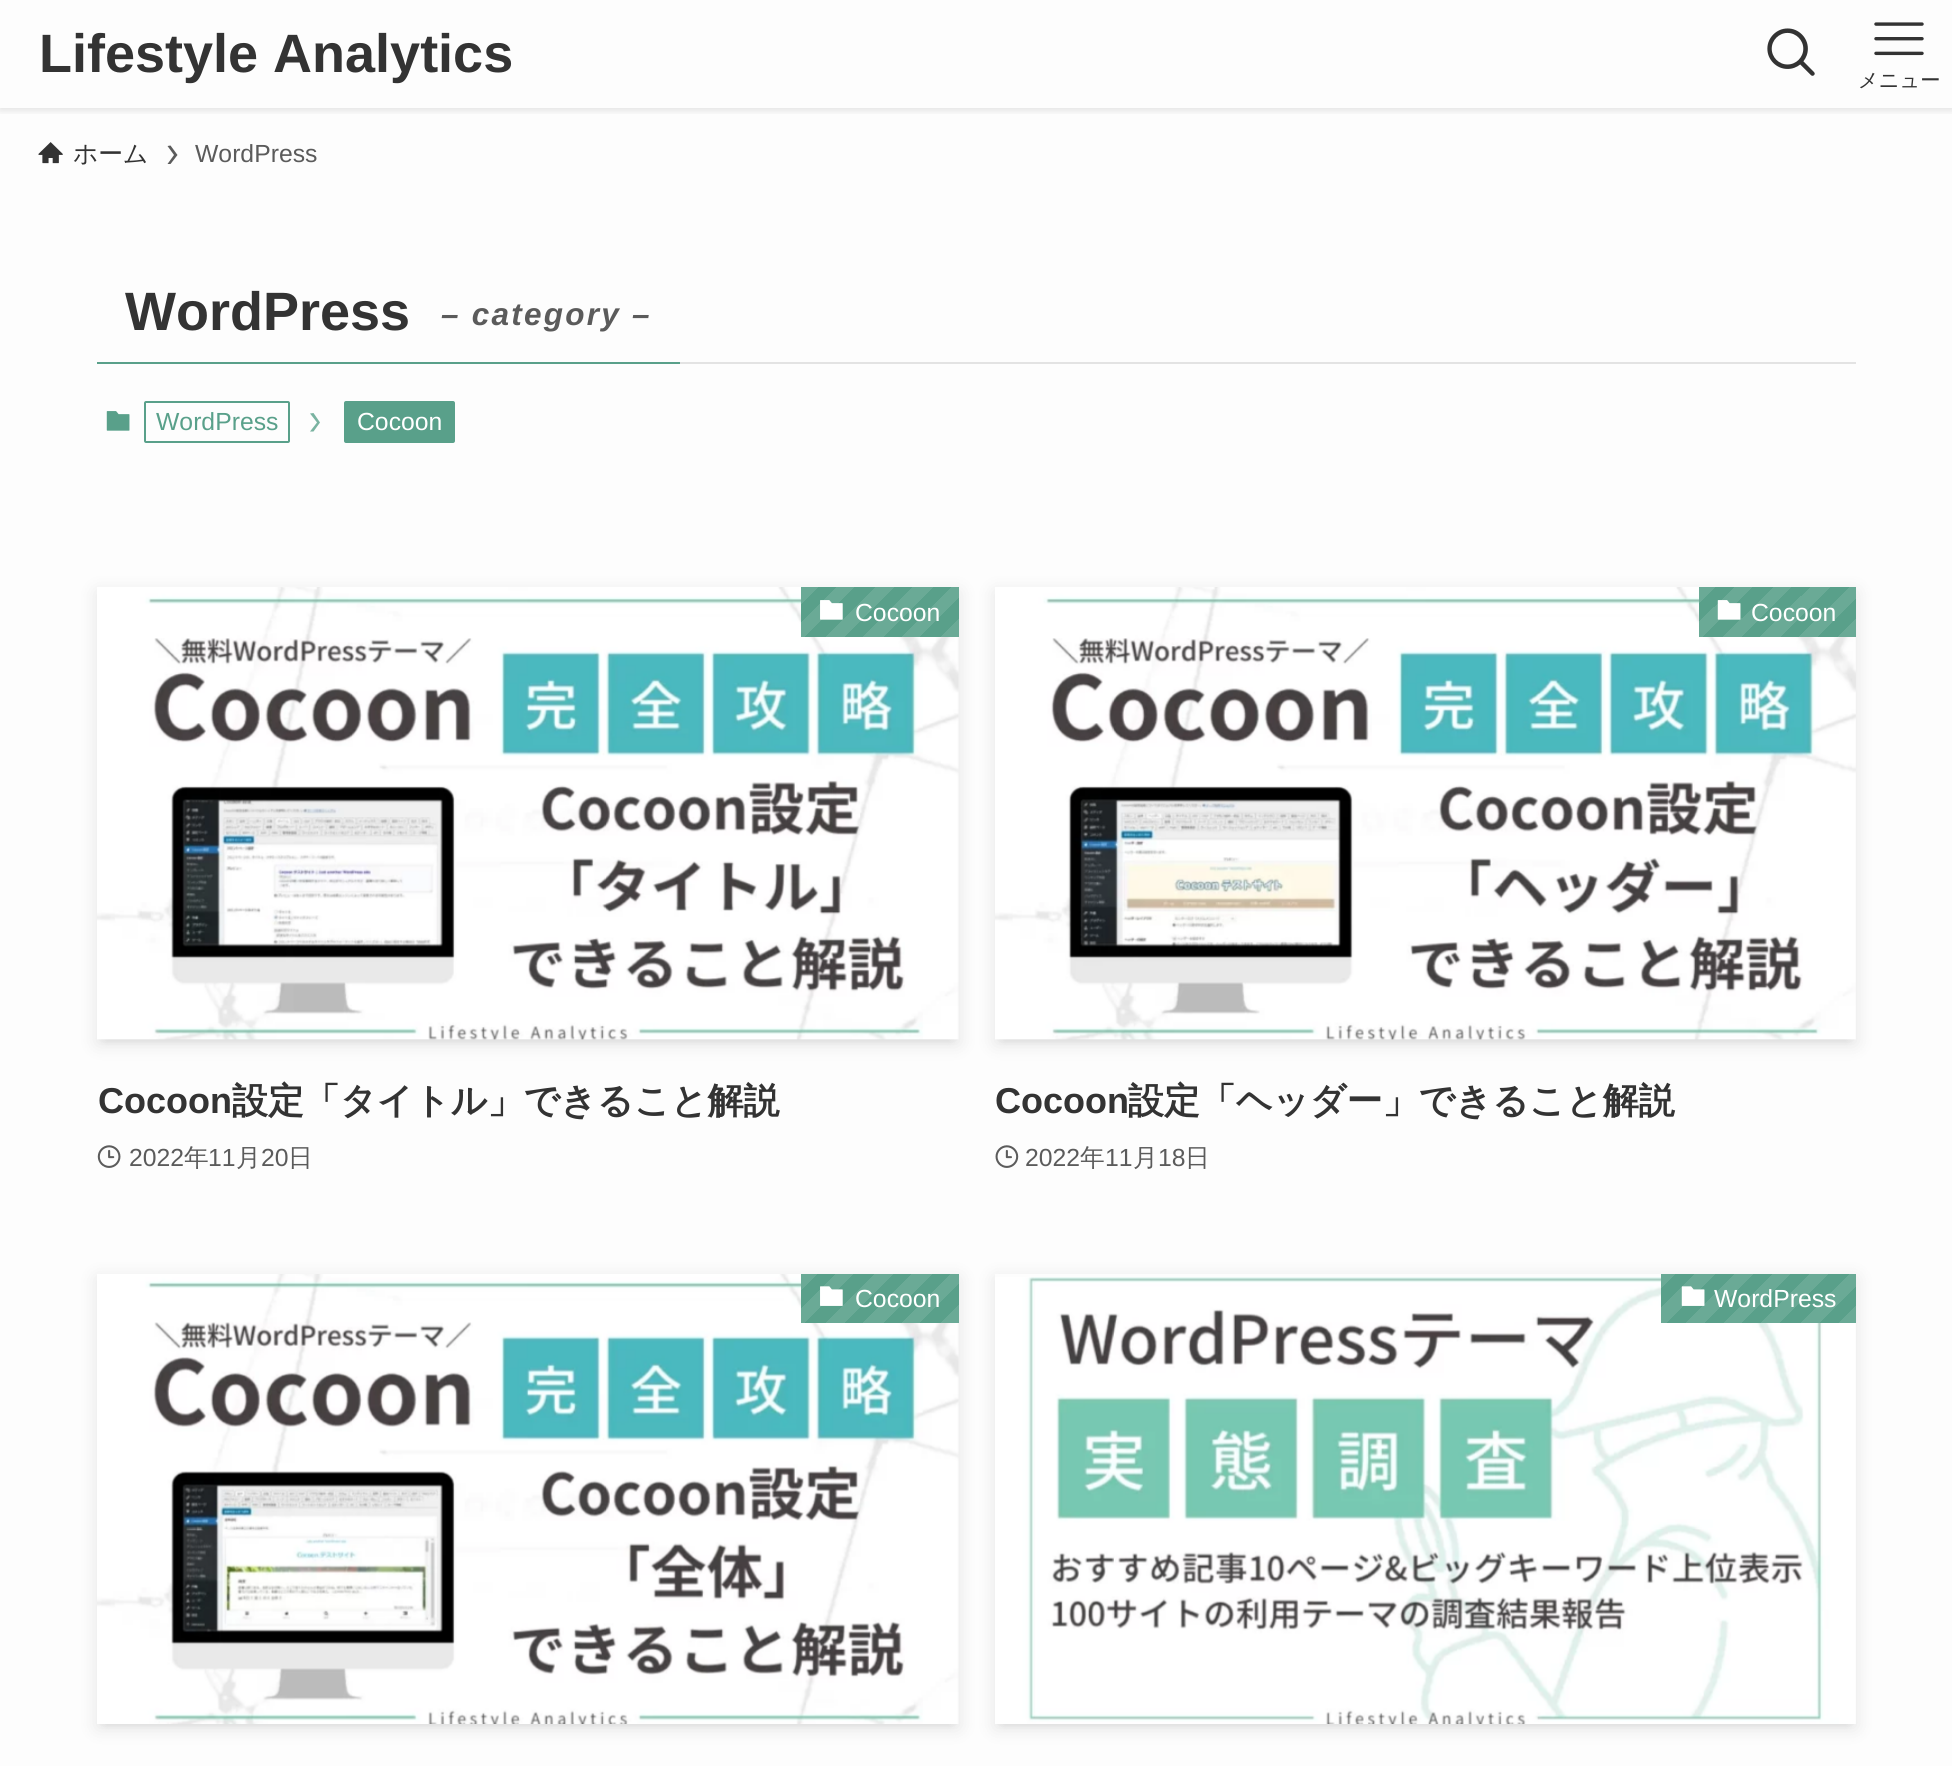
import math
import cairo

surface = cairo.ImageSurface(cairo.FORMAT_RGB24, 1952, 1766)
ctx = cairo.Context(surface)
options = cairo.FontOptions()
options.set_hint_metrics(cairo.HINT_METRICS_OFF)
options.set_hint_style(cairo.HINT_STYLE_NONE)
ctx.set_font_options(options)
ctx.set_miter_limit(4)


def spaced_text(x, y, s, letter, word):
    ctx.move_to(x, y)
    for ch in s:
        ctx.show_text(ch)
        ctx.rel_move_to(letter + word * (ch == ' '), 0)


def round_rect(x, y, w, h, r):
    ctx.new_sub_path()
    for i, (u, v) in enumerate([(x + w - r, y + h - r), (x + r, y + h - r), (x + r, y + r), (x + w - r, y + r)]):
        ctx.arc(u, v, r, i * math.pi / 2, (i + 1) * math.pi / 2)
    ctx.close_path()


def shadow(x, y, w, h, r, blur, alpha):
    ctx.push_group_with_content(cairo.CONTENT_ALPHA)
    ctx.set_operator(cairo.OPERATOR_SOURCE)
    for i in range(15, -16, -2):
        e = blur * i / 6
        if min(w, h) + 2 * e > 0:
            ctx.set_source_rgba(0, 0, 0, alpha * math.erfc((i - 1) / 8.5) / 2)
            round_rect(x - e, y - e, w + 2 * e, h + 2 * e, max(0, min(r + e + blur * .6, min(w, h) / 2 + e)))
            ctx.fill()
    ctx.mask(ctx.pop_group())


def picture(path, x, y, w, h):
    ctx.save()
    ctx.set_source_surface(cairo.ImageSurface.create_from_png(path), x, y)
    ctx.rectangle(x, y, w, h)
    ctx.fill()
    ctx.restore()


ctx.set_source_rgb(0.992, 0.992, 0.992)
ctx.paint()
ctx.save()
ctx.rectangle(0, 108, 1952, 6)
ctx.clip()
ctx.set_source_rgb(0, 0, 0)
shadow(0, 2, 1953, 108, 0, 4.5, 0.12)
ctx.restore()
ctx.select_font_face("Liberation Sans", cairo.FONT_SLANT_NORMAL, cairo.FONT_WEIGHT_BOLD)
ctx.set_font_size(54)
ctx.set_source_rgb(0.2, 0.2, 0.2)
ctx.move_to(39, 72)
ctx.show_text("Lifestyle Analytics")
picture("img1.png", 1767, 28, 48, 48)
picture("img2.png", 1874, 22, 50, 34)
ctx.select_font_face("WenQuanYi Zen Hei Medium")
ctx.set_font_size(20.25)
ctx.move_to(1858, 87)
ctx.show_text("メニュー")
picture("img3.png", 38, 142, 25, 22)
ctx.set_font_size(24.75)
ctx.move_to(73, 162)
ctx.show_text("ホーム")
ctx.set_source_rgb(0.357, 0.357, 0.357)
ctx.new_path()
ctx.move_to(170.5, 145.5)
ctx.line_to(167.5, 146)
ctx.line_to(174, 155)
ctx.line_to(167.5, 164)
ctx.line_to(170.5, 164)
ctx.line_to(177.5, 155)
ctx.close_path()
ctx.fill()
ctx.select_font_face("Liberation Sans")
ctx.move_to(195, 162)
ctx.show_text("WordPress")
ctx.set_source_rgb(0.89, 0.89, 0.89)
ctx.rectangle(680, 362, 1176, 2)
ctx.fill()
ctx.set_source_rgb(0.349, 0.627, 0.541)
ctx.rectangle(97, 362, 583, 2)
ctx.fill()
ctx.select_font_face("Liberation Sans", cairo.FONT_SLANT_NORMAL, cairo.FONT_WEIGHT_BOLD)
ctx.set_font_size(54)
ctx.set_source_rgb(0.2, 0.2, 0.2)
ctx.move_to(125, 330)
ctx.show_text("WordPress")
ctx.select_font_face("Liberation Sans", cairo.FONT_SLANT_ITALIC, cairo.FONT_WEIGHT_BOLD)
ctx.set_font_size(31.5)
ctx.set_source_rgb(0.357, 0.357, 0.357)
spaced_text(441, 325, "– category –", 2.25, 0)
picture("img4.png", 106, 411, 24, 20)
round_rect(145, 402, 144, 40, 1)
ctx.set_source_rgb(0.349, 0.627, 0.541)
ctx.stroke()
ctx.select_font_face("Liberation Sans")
ctx.set_font_size(24.75)
ctx.move_to(156, 430)
ctx.show_text("WordPress")
ctx.set_source_rgb(0.478, 0.702, 0.631)
ctx.new_path()
ctx.move_to(313.5, 413)
ctx.line_to(310, 413.5)
ctx.line_to(317, 422.5)
ctx.line_to(310, 431.5)
ctx.line_to(313.5, 431.5)
ctx.line_to(320, 422.5)
ctx.close_path()
ctx.fill()
ctx.set_source_rgb(0.349, 0.627, 0.541)
round_rect(344, 401, 111, 42, 2)
ctx.fill()
ctx.set_source_rgb(1, 1, 1)
ctx.move_to(357, 430)
ctx.show_text("Cocoon")
ctx.set_source_rgb(0, 0, 0)
shadow(106, 605, 844, 435, 0, 4.5, 0.1)
shadow(97, 592, 862, 452, 0, 9, 0.1)
picture("img5.png", 97, 587, 862, 453)
gradient = cairo.LinearGradient(932, 664, 817, 549)
gradient.add_color_stop_rgba(0, 0.416, 0.667, 0.588, 1)
gradient.add_color_stop_rgba(0.08, 0.416, 0.667, 0.588, 1)
gradient.add_color_stop_rgba(0.08, 0.349, 0.627, 0.541, 1)
gradient.add_color_stop_rgba(0.17, 0.349, 0.627, 0.541, 1)
gradient.add_color_stop_rgba(0.17, 0.416, 0.667, 0.588, 1)
gradient.add_color_stop_rgba(0.25, 0.416, 0.667, 0.588, 1)
gradient.add_color_stop_rgba(0.25, 0.349, 0.627, 0.541, 1)
gradient.add_color_stop_rgba(0.33, 0.349, 0.627, 0.541, 1)
gradient.add_color_stop_rgba(0.33, 0.416, 0.667, 0.588, 1)
gradient.add_color_stop_rgba(0.42, 0.416, 0.667, 0.588, 1)
gradient.add_color_stop_rgba(0.42, 0.349, 0.627, 0.541, 1)
gradient.add_color_stop_rgba(0.5, 0.349, 0.627, 0.541, 1)
gradient.add_color_stop_rgba(0.5, 0.416, 0.667, 0.588, 1)
gradient.add_color_stop_rgba(0.58, 0.416, 0.667, 0.588, 1)
gradient.add_color_stop_rgba(0.58, 0.349, 0.627, 0.541, 1)
gradient.add_color_stop_rgba(0.67, 0.349, 0.627, 0.541, 1)
gradient.add_color_stop_rgba(0.67, 0.416, 0.667, 0.588, 1)
gradient.add_color_stop_rgba(0.75, 0.416, 0.667, 0.588, 1)
gradient.add_color_stop_rgba(0.75, 0.349, 0.627, 0.541, 1)
gradient.add_color_stop_rgba(0.83, 0.349, 0.627, 0.541, 1)
gradient.add_color_stop_rgba(0.83, 0.416, 0.667, 0.588, 1)
gradient.add_color_stop_rgba(0.92, 0.416, 0.667, 0.588, 1)
gradient.add_color_stop_rgba(0.92, 0.349, 0.627, 0.541, 1)
gradient.add_color_stop_rgba(1, 0.349, 0.627, 0.541, 1)
ctx.set_source(gradient)
ctx.rectangle(801, 587, 158, 50)
ctx.fill()
picture("img6.png", 820, 600, 23, 20)
ctx.set_source_rgb(1, 1, 1)
ctx.move_to(855, 621)
ctx.show_text("Cocoon")
ctx.select_font_face("Liberation Sans", cairo.FONT_SLANT_NORMAL, cairo.FONT_WEIGHT_BOLD)
ctx.set_font_size(36)
ctx.set_source_rgb(0.2, 0.2, 0.2)
ctx.move_to(98, 1113)
ctx.show_text("Cocoon")
ctx.select_font_face("WenQuanYi Zen Hei", cairo.FONT_SLANT_NORMAL, cairo.FONT_WEIGHT_BOLD)
ctx.move_to(232, 1113)
ctx.show_text("設定「タイトル」できること解説")
picture("img7.png", 97, 1145, 24, 23)
ctx.select_font_face("Liberation Sans")
ctx.set_font_size(24.75)
ctx.set_source_rgb(0.357, 0.357, 0.357)
ctx.move_to(129, 1166)
ctx.show_text("2022")
ctx.select_font_face("WenQuanYi Zen Hei Medium")
ctx.move_to(184, 1166)
ctx.show_text("年")
ctx.select_font_face("Liberation Sans")
ctx.move_to(208, 1166)
ctx.show_text("11")
ctx.select_font_face("WenQuanYi Zen Hei Medium")
ctx.move_to(236, 1166)
ctx.show_text("月")
ctx.select_font_face("Liberation Sans")
ctx.move_to(261, 1166)
ctx.show_text("20")
ctx.select_font_face("WenQuanYi Zen Hei Medium")
ctx.move_to(288, 1166)
ctx.show_text("日")
ctx.set_source_rgb(0, 0, 0)
shadow(1004, 605, 843, 435, 0, 4.5, 0.1)
shadow(995, 592, 861, 452, 0, 9, 0.1)
picture("img8.png", 995, 587, 861, 453)
gradient = cairo.LinearGradient(1829, 664, 1715, 549)
gradient.add_color_stop_rgba(0, 0.416, 0.667, 0.588, 1)
gradient.add_color_stop_rgba(0.08, 0.416, 0.667, 0.588, 1)
gradient.add_color_stop_rgba(0.08, 0.349, 0.627, 0.541, 1)
gradient.add_color_stop_rgba(0.17, 0.349, 0.627, 0.541, 1)
gradient.add_color_stop_rgba(0.17, 0.416, 0.667, 0.588, 1)
gradient.add_color_stop_rgba(0.25, 0.416, 0.667, 0.588, 1)
gradient.add_color_stop_rgba(0.25, 0.349, 0.627, 0.541, 1)
gradient.add_color_stop_rgba(0.33, 0.349, 0.627, 0.541, 1)
gradient.add_color_stop_rgba(0.33, 0.416, 0.667, 0.588, 1)
gradient.add_color_stop_rgba(0.42, 0.416, 0.667, 0.588, 1)
gradient.add_color_stop_rgba(0.42, 0.349, 0.627, 0.541, 1)
gradient.add_color_stop_rgba(0.5, 0.349, 0.627, 0.541, 1)
gradient.add_color_stop_rgba(0.5, 0.416, 0.667, 0.588, 1)
gradient.add_color_stop_rgba(0.58, 0.416, 0.667, 0.588, 1)
gradient.add_color_stop_rgba(0.58, 0.349, 0.627, 0.541, 1)
gradient.add_color_stop_rgba(0.67, 0.349, 0.627, 0.541, 1)
gradient.add_color_stop_rgba(0.67, 0.416, 0.667, 0.588, 1)
gradient.add_color_stop_rgba(0.75, 0.416, 0.667, 0.588, 1)
gradient.add_color_stop_rgba(0.75, 0.349, 0.627, 0.541, 1)
gradient.add_color_stop_rgba(0.83, 0.349, 0.627, 0.541, 1)
gradient.add_color_stop_rgba(0.83, 0.416, 0.667, 0.588, 1)
gradient.add_color_stop_rgba(0.92, 0.416, 0.667, 0.588, 1)
gradient.add_color_stop_rgba(0.92, 0.349, 0.627, 0.541, 1)
gradient.add_color_stop_rgba(1, 0.349, 0.627, 0.541, 1)
ctx.set_source(gradient)
ctx.rectangle(1699, 587, 157, 50)
ctx.fill()
picture("img9.png", 1717, 600, 24, 20)
ctx.select_font_face("Liberation Sans")
ctx.set_source_rgb(1, 1, 1)
ctx.move_to(1751, 621)
ctx.show_text("Cocoon")
ctx.select_font_face("Liberation Sans", cairo.FONT_SLANT_NORMAL, cairo.FONT_WEIGHT_BOLD)
ctx.set_font_size(36)
ctx.set_source_rgb(0.2, 0.2, 0.2)
ctx.move_to(995, 1113)
ctx.show_text("Cocoon")
ctx.select_font_face("WenQuanYi Zen Hei", cairo.FONT_SLANT_NORMAL, cairo.FONT_WEIGHT_BOLD)
ctx.move_to(1128, 1113)
ctx.show_text("設定「ヘッダー」できること解説")
picture("img10.png", 995, 1145, 24, 23)
ctx.select_font_face("Liberation Sans")
ctx.set_font_size(24.75)
ctx.set_source_rgb(0.357, 0.357, 0.357)
ctx.move_to(1025, 1166)
ctx.show_text("2022")
ctx.select_font_face("WenQuanYi Zen Hei Medium")
ctx.move_to(1080, 1166)
ctx.show_text("年")
ctx.select_font_face("Liberation Sans")
ctx.move_to(1105, 1166)
ctx.show_text("11")
ctx.select_font_face("WenQuanYi Zen Hei Medium")
ctx.move_to(1133, 1166)
ctx.show_text("月")
ctx.select_font_face("Liberation Sans")
ctx.move_to(1158, 1166)
ctx.show_text("18")
ctx.select_font_face("WenQuanYi Zen Hei Medium")
ctx.move_to(1185, 1166)
ctx.show_text("日")
ctx.set_source_rgb(0, 0, 0)
shadow(106, 1292, 844, 432, 0, 4.5, 0.1)
shadow(97, 1278, 862, 450, 0, 9, 0.1)
picture("img11.png", 97, 1274, 862, 450)
gradient = cairo.LinearGradient(932, 1350, 817, 1235)
gradient.add_color_stop_rgba(0, 0.416, 0.667, 0.588, 1)
gradient.add_color_stop_rgba(0.08, 0.416, 0.667, 0.588, 1)
gradient.add_color_stop_rgba(0.08, 0.349, 0.627, 0.541, 1)
gradient.add_color_stop_rgba(0.17, 0.349, 0.627, 0.541, 1)
gradient.add_color_stop_rgba(0.17, 0.416, 0.667, 0.588, 1)
gradient.add_color_stop_rgba(0.25, 0.416, 0.667, 0.588, 1)
gradient.add_color_stop_rgba(0.25, 0.349, 0.627, 0.541, 1)
gradient.add_color_stop_rgba(0.33, 0.349, 0.627, 0.541, 1)
gradient.add_color_stop_rgba(0.33, 0.416, 0.667, 0.588, 1)
gradient.add_color_stop_rgba(0.42, 0.416, 0.667, 0.588, 1)
gradient.add_color_stop_rgba(0.42, 0.349, 0.627, 0.541, 1)
gradient.add_color_stop_rgba(0.5, 0.349, 0.627, 0.541, 1)
gradient.add_color_stop_rgba(0.5, 0.416, 0.667, 0.588, 1)
gradient.add_color_stop_rgba(0.58, 0.416, 0.667, 0.588, 1)
gradient.add_color_stop_rgba(0.58, 0.349, 0.627, 0.541, 1)
gradient.add_color_stop_rgba(0.67, 0.349, 0.627, 0.541, 1)
gradient.add_color_stop_rgba(0.67, 0.416, 0.667, 0.588, 1)
gradient.add_color_stop_rgba(0.75, 0.416, 0.667, 0.588, 1)
gradient.add_color_stop_rgba(0.75, 0.349, 0.627, 0.541, 1)
gradient.add_color_stop_rgba(0.83, 0.349, 0.627, 0.541, 1)
gradient.add_color_stop_rgba(0.83, 0.416, 0.667, 0.588, 1)
gradient.add_color_stop_rgba(0.92, 0.416, 0.667, 0.588, 1)
gradient.add_color_stop_rgba(0.92, 0.349, 0.627, 0.541, 1)
gradient.add_color_stop_rgba(1, 0.349, 0.627, 0.541, 1)
ctx.set_source(gradient)
ctx.rectangle(801, 1274, 158, 49)
ctx.fill()
picture("img12.png", 820, 1286, 23, 20)
ctx.select_font_face("Liberation Sans")
ctx.set_source_rgb(1, 1, 1)
ctx.move_to(855, 1307)
ctx.show_text("Cocoon")
ctx.set_source_rgb(0, 0, 0)
shadow(1004, 1292, 843, 432, 0, 4.5, 0.1)
ctx.save()
ctx.set_fill_rule(cairo.FILL_RULE_EVEN_ODD)
ctx.new_path()
ctx.move_to(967, 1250)
ctx.line_to(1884, 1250)
ctx.line_to(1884, 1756)
ctx.line_to(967, 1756)
ctx.close_path()
ctx.move_to(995, 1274)
ctx.line_to(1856, 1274)
ctx.line_to(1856, 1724)
ctx.line_to(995, 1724)
ctx.close_path()
ctx.clip()
shadow(995, 1278, 861, 450, 0, 9, 0.1)
ctx.restore()
picture("img13.png", 995, 1277, 860, 447)
gradient = cairo.LinearGradient(1820, 1360, 1686, 1226)
gradient.add_color_stop_rgba(0, 0.416, 0.667, 0.588, 1)
gradient.add_color_stop_rgba(0.07, 0.416, 0.667, 0.588, 1)
gradient.add_color_stop_rgba(0.07, 0.349, 0.627, 0.541, 1)
gradient.add_color_stop_rgba(0.14, 0.349, 0.627, 0.541, 1)
gradient.add_color_stop_rgba(0.14, 0.416, 0.667, 0.588, 1)
gradient.add_color_stop_rgba(0.21, 0.416, 0.667, 0.588, 1)
gradient.add_color_stop_rgba(0.21, 0.349, 0.627, 0.541, 1)
gradient.add_color_stop_rgba(0.29, 0.349, 0.627, 0.541, 1)
gradient.add_color_stop_rgba(0.29, 0.416, 0.667, 0.588, 1)
gradient.add_color_stop_rgba(0.36, 0.416, 0.667, 0.588, 1)
gradient.add_color_stop_rgba(0.36, 0.349, 0.627, 0.541, 1)
gradient.add_color_stop_rgba(0.43, 0.349, 0.627, 0.541, 1)
gradient.add_color_stop_rgba(0.43, 0.416, 0.667, 0.588, 1)
gradient.add_color_stop_rgba(0.5, 0.416, 0.667, 0.588, 1)
gradient.add_color_stop_rgba(0.5, 0.349, 0.627, 0.541, 1)
gradient.add_color_stop_rgba(0.57, 0.349, 0.627, 0.541, 1)
gradient.add_color_stop_rgba(0.57, 0.416, 0.667, 0.588, 1)
gradient.add_color_stop_rgba(0.64, 0.416, 0.667, 0.588, 1)
gradient.add_color_stop_rgba(0.64, 0.349, 0.627, 0.541, 1)
gradient.add_color_stop_rgba(0.71, 0.349, 0.627, 0.541, 1)
gradient.add_color_stop_rgba(0.71, 0.416, 0.667, 0.588, 1)
gradient.add_color_stop_rgba(0.79, 0.416, 0.667, 0.588, 1)
gradient.add_color_stop_rgba(0.79, 0.349, 0.627, 0.541, 1)
gradient.add_color_stop_rgba(0.86, 0.349, 0.627, 0.541, 1)
gradient.add_color_stop_rgba(0.86, 0.416, 0.667, 0.588, 1)
gradient.add_color_stop_rgba(0.93, 0.416, 0.667, 0.588, 1)
gradient.add_color_stop_rgba(0.93, 0.349, 0.627, 0.541, 1)
gradient.add_color_stop_rgba(1, 0.349, 0.627, 0.541, 1)
ctx.set_source(gradient)
ctx.rectangle(1661, 1274, 195, 49)
ctx.fill()
picture("img14.png", 1681, 1286, 24, 20)
ctx.set_source_rgb(1, 1, 1)
ctx.move_to(1714, 1307)
ctx.show_text("WordPress")
surface.write_to_png("page.png")
